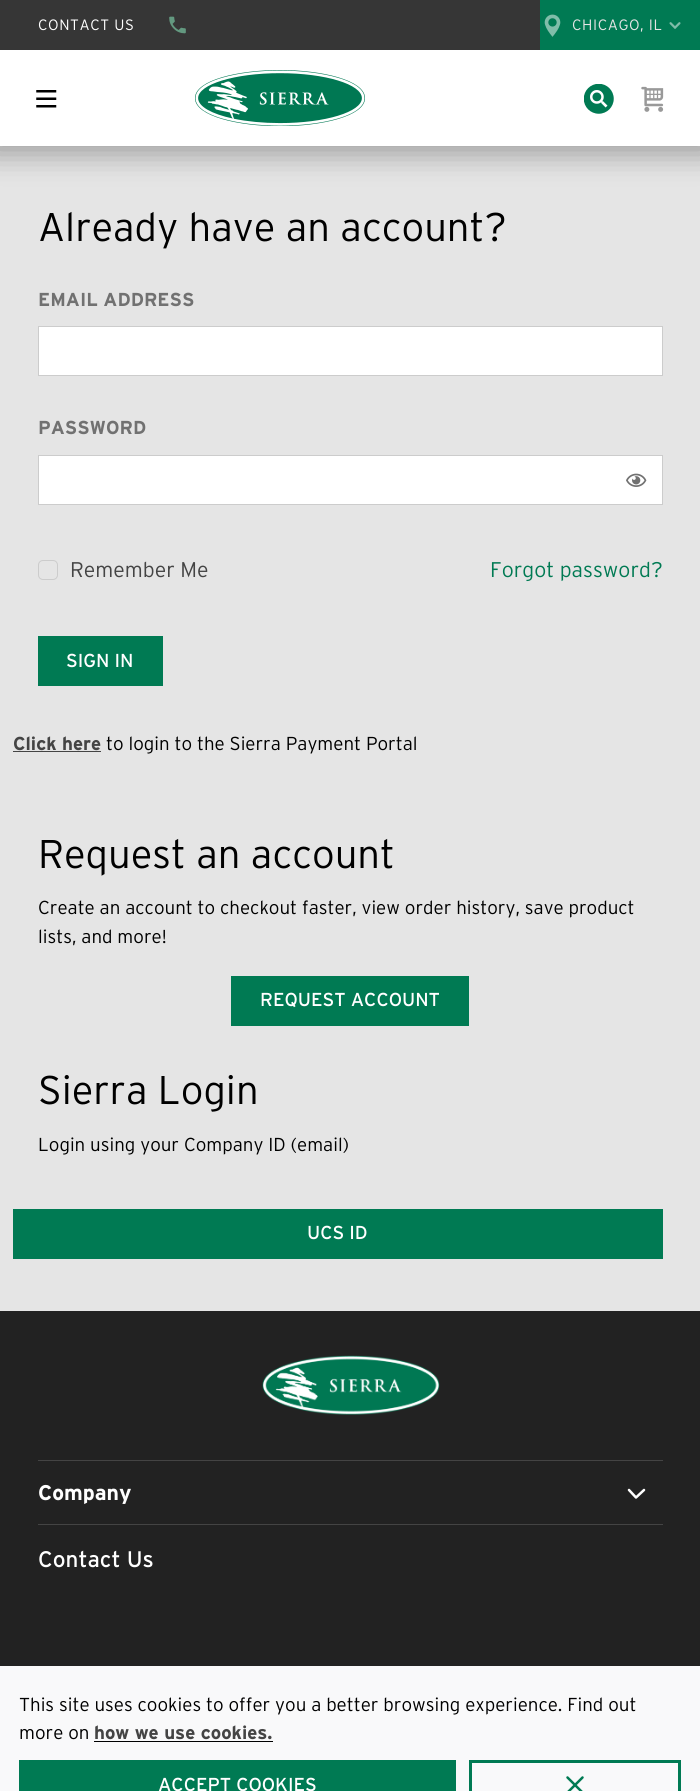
import math
import cairo

surface = cairo.ImageSurface(cairo.FORMAT_RGB24, 700, 1791)
ctx = cairo.Context(surface)
options = cairo.FontOptions()
options.set_hint_metrics(cairo.HINT_METRICS_OFF)
options.set_hint_style(cairo.HINT_STYLE_NONE)
ctx.set_font_options(options)
ctx.set_miter_limit(4)


def spaced_text(x, y, s, letter, word):
    ctx.move_to(x, y)
    for ch in s:
        ctx.show_text(ch)
        ctx.rel_move_to(letter + word * (ch == ' '), 0)


def round_rect(x, y, w, h, r):
    ctx.new_sub_path()
    for i, (u, v) in enumerate([(x + w - r, y + h - r), (x + r, y + h - r), (x + r, y + r), (x + w - r, y + r)]):
        ctx.arc(u, v, r, i * math.pi / 2, (i + 1) * math.pi / 2)
    ctx.close_path()


def shadow(x, y, w, h, r, blur, alpha):
    ctx.push_group_with_content(cairo.CONTENT_ALPHA)
    ctx.set_operator(cairo.OPERATOR_SOURCE)
    for i in range(15, -16, -2):
        e = blur * i / 6
        if min(w, h) + 2 * e > 0:
            ctx.set_source_rgba(0, 0, 0, alpha * math.erfc((i - 1) / 8.5) / 2)
            round_rect(x - e, y - e, w + 2 * e, h + 2 * e, max(0, min(r + e + blur * .6, min(w, h) / 2 + e)))
            ctx.fill()
    ctx.mask(ctx.pop_group())


def picture(path, x, y, w, h):
    ctx.save()
    ctx.set_source_surface(cairo.ImageSurface.create_from_png(path), x, y)
    ctx.rectangle(x, y, w, h)
    ctx.fill()
    ctx.restore()


ctx.set_source_rgb(0.898, 0.898, 0.898)
ctx.paint()
ctx.set_source_rgb(0, 0, 0)
shadow(-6, 45, 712, 109, 0, 15, 0.32)
ctx.set_source_rgb(1, 1, 1)
ctx.rectangle(0, 50, 700, 96)
ctx.fill()
picture("img1.png", 36, 90, 21, 18)
picture("img2.png", 195, 70, 170, 56)
picture("img3.png", 584, 84, 30, 30)
picture("img4.png", 641, 86, 23, 26)
ctx.set_source_rgb(0.212, 0.212, 0.212)
ctx.rectangle(0, 0, 540, 50)
ctx.fill()
ctx.select_font_face("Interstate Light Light")
ctx.set_font_size(15)
ctx.set_source_rgb(1, 1, 1)
spaced_text(38, 30, "CONTACT US", 0.6, 0)
picture("img5.png", 169, 16, 17, 18)
ctx.set_source_rgb(0, 0.478, 0.325)
ctx.rectangle(540, 0, 160, 50)
ctx.fill()
picture("img6.png", 544, 14, 17, 23)
ctx.set_source_rgb(0.898, 0.898, 0.898)
spaced_text(572, 30, "CHICAGO, IL", 0.6, 0)
picture("img7.png", 669, 22, 12, 7)
ctx.set_font_size(40)
ctx.set_source_rgb(0, 0, 0)
ctx.move_to(38, 241)
ctx.show_text("Already have an account?")
ctx.select_font_face("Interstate", cairo.FONT_SLANT_NORMAL, cairo.FONT_WEIGHT_BOLD)
ctx.set_font_size(18.75)
ctx.set_source_rgb(0.443, 0.443, 0.443)
ctx.move_to(38, 306)
ctx.show_text("EMAIL ADDRESS")
ctx.set_source_rgb(1, 1, 1)
ctx.rectangle(38.5, 326.5, 624, 49)
ctx.fill_preserve()
ctx.set_source_rgb(0.8, 0.8, 0.8)
ctx.set_line_width(1)
ctx.stroke()
ctx.set_source_rgb(0.443, 0.443, 0.443)
ctx.move_to(38, 434)
ctx.show_text("PASSWORD")
ctx.set_source_rgb(1, 1, 1)
ctx.rectangle(38.5, 455.5, 624, 49)
ctx.fill_preserve()
ctx.set_source_rgb(0.8, 0.8, 0.8)
ctx.stroke()
picture("img8.png", 626, 473, 21, 14)
round_rect(38.5, 560.5, 19, 19, 4.5)
ctx.stroke()
ctx.select_font_face("Interstate Light Light")
ctx.set_font_size(21.25)
ctx.set_source_rgb(0.267, 0.267, 0.267)
ctx.move_to(70, 577)
ctx.show_text("Remember Me")
ctx.set_source_rgb(0, 0.478, 0.325)
ctx.move_to(490, 577)
ctx.show_text("Forgot password?")
ctx.rectangle(38, 636, 125, 50)
ctx.fill()
ctx.select_font_face("Interstate")
ctx.set_font_size(18.75)
ctx.set_source_rgb(1, 1, 1)
ctx.move_to(66, 667)
ctx.show_text("SIGN IN")
ctx.select_font_face("Interstate", cairo.FONT_SLANT_NORMAL, cairo.FONT_WEIGHT_BOLD)
ctx.set_source_rgb(0.267, 0.267, 0.267)
ctx.move_to(13, 750)
ctx.show_text("Click here")
ctx.rectangle(13, 751, 88, 1)
ctx.fill()
ctx.select_font_face("Interstate Light Light")
ctx.set_source_rgb(0, 0, 0)
ctx.move_to(106, 750)
ctx.show_text("to login to the Sierra Payment Portal")
ctx.set_font_size(40)
ctx.move_to(38, 868)
ctx.show_text("Request an account")
ctx.set_font_size(18.75)
ctx.move_to(38, 914)
ctx.show_text("Create an account to checkout faster, view order history, save product")
ctx.move_to(38, 943)
ctx.show_text("lists, and more!")
ctx.set_source_rgb(0, 0.478, 0.325)
ctx.rectangle(231, 976, 238, 50)
ctx.fill()
ctx.select_font_face("Interstate")
ctx.set_source_rgb(1, 1, 1)
ctx.move_to(260, 1006)
ctx.show_text("REQUEST ACCOUNT")
ctx.select_font_face("Interstate Light Light")
ctx.set_font_size(40)
ctx.set_source_rgb(0, 0, 0)
ctx.move_to(38, 1104)
ctx.show_text("Sierra Login")
ctx.set_font_size(18.75)
ctx.move_to(38, 1151)
ctx.show_text("Login using your Company ID (email)")
ctx.set_source_rgb(0, 0.478, 0.325)
ctx.rectangle(13, 1209, 650, 50)
ctx.fill()
ctx.select_font_face("Interstate")
ctx.set_source_rgb(1, 1, 1)
ctx.move_to(307, 1239)
ctx.show_text("UCS ID")
ctx.set_source_rgb(0.133, 0.133, 0.133)
ctx.rectangle(0, 1311, 700, 355)
ctx.fill()
picture("img9.png", 262, 1355, 178, 60)
ctx.set_source_rgb(0.267, 0.267, 0.267)
ctx.rectangle(38, 1460, 625, 1)
ctx.fill()
ctx.select_font_face("Interstate", cairo.FONT_SLANT_NORMAL, cairo.FONT_WEIGHT_BOLD)
ctx.set_font_size(21.25)
ctx.set_source_rgb(1, 1, 1)
ctx.move_to(38, 1500)
ctx.show_text("Company")
ctx.new_path()
ctx.move_to(629, 1490)
ctx.line_to(636, 1497.5)
ctx.line_to(644, 1490)
ctx.set_line_width(2.5)
ctx.set_line_cap(cairo.LINE_CAP_ROUND)
ctx.set_line_join(cairo.LINE_JOIN_ROUND)
ctx.stroke()
ctx.set_source_rgb(0.267, 0.267, 0.267)
ctx.rectangle(38, 1524, 625, 1)
ctx.fill()
ctx.select_font_face("Interstate")
ctx.set_font_size(22.5)
ctx.set_source_rgb(1, 1, 1)
ctx.move_to(38, 1567)
ctx.show_text("Contact Us")
ctx.set_source_rgb(0.973, 0.976, 0.98)
ctx.rectangle(0, 1666, 700, 125)
ctx.fill()
ctx.select_font_face("Interstate Light Light")
ctx.set_font_size(18.75)
ctx.set_source_rgb(0, 0, 0)
ctx.move_to(19, 1711)
ctx.show_text("This site uses cookies to offer you a better browsing experience. Find out")
ctx.move_to(19, 1739)
ctx.show_text("more on")
ctx.select_font_face("Interstate", cairo.FONT_SLANT_NORMAL, cairo.FONT_WEIGHT_BOLD)
ctx.set_source_rgb(0.267, 0.267, 0.267)
ctx.move_to(94, 1739)
ctx.show_text("how we use cookies.")
ctx.set_source_rgb(0, 0, 0)
ctx.rectangle(94, 1741, 179, 1)
ctx.fill()
ctx.set_source_rgb(0, 0.478, 0.325)
ctx.rectangle(19, 1760, 437, 31)
ctx.fill()
ctx.select_font_face("Interstate")
ctx.set_source_rgb(1, 1, 1)
ctx.move_to(158, 1791)
ctx.show_text("ACCEPT COOKIES")
ctx.rectangle(470.5, 1761.5, 209, 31)
ctx.set_source_rgb(0, 0.478, 0.325)
ctx.set_line_width(3)
ctx.set_line_cap(cairo.LINE_CAP_BUTT)
ctx.set_line_join(cairo.LINE_JOIN_MITER)
ctx.stroke()
ctx.new_path()
ctx.move_to(582.5, 1777.5)
ctx.line_to(567.5, 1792.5)
ctx.move_to(567.5, 1777.5)
ctx.line_to(582.5, 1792.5)
ctx.set_line_width(2.5)
ctx.set_line_cap(cairo.LINE_CAP_ROUND)
ctx.set_line_join(cairo.LINE_JOIN_ROUND)
ctx.stroke()
surface.write_to_png("page.png")
